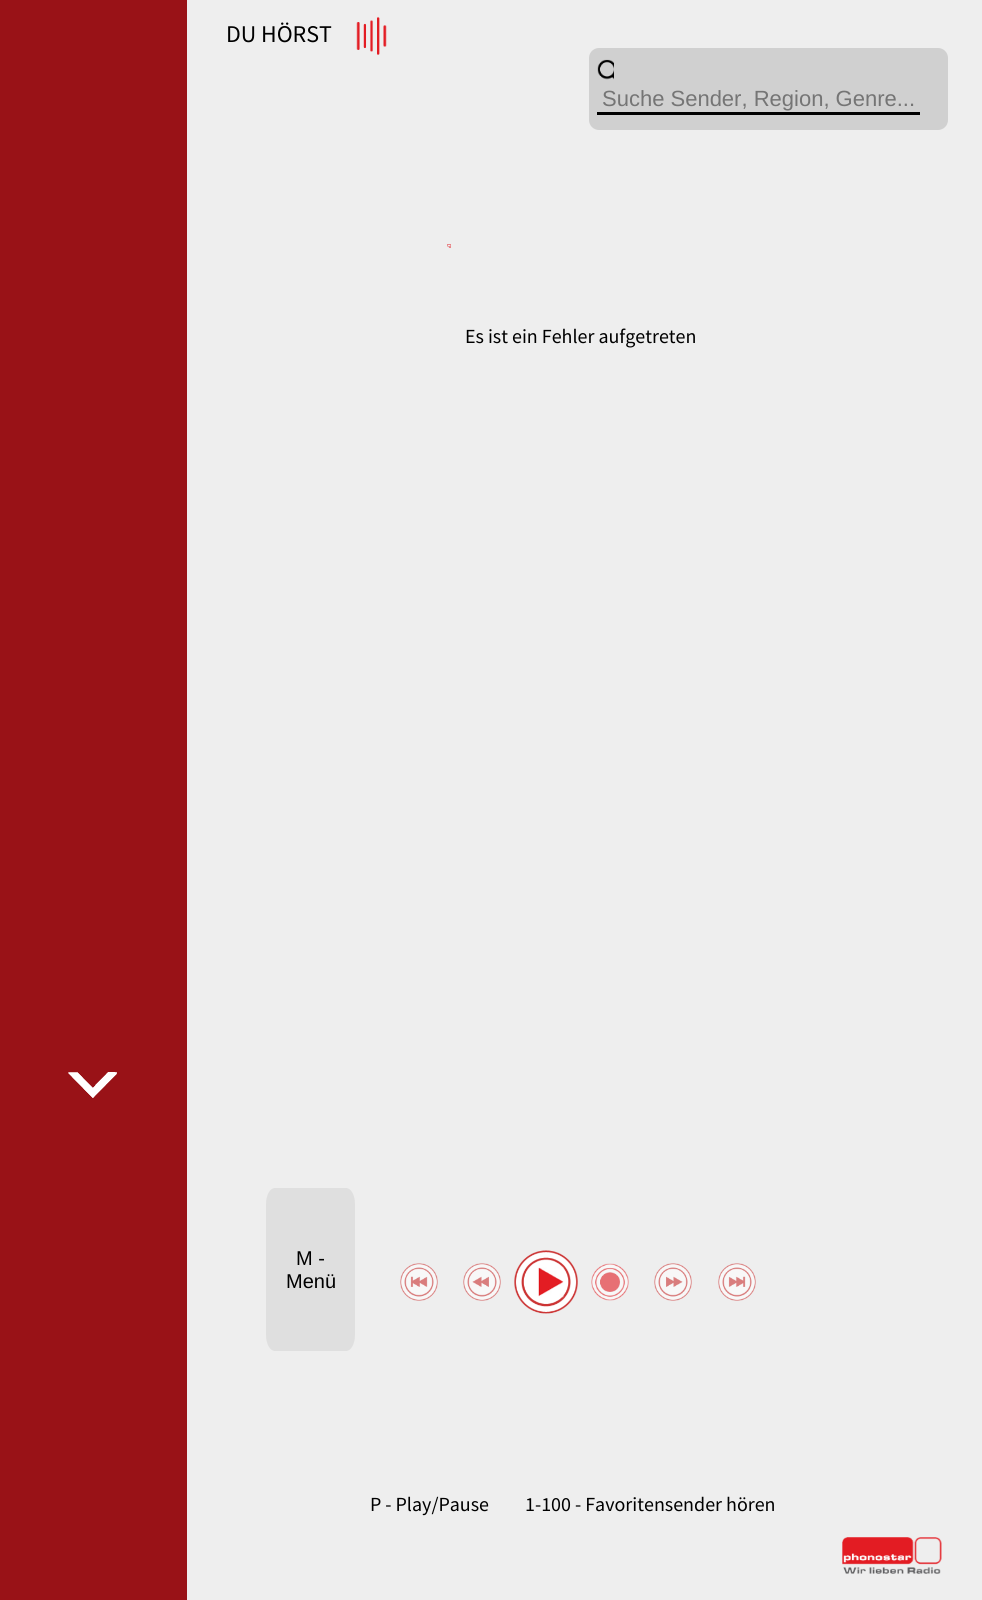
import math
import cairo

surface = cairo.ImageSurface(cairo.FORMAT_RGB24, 982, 1600)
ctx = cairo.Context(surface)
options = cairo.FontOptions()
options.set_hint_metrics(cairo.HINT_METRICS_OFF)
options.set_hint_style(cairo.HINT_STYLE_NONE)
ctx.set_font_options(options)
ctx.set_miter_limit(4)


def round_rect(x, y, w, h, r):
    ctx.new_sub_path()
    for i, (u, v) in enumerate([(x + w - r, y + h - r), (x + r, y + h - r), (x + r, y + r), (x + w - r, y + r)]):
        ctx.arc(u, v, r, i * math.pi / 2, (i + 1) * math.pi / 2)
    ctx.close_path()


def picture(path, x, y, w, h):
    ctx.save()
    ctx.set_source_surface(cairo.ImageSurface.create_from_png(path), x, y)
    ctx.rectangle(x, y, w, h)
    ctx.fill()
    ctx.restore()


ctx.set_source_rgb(0.933, 0.933, 0.933)
ctx.paint()
ctx.set_source_rgb(0.6, 0.071, 0.09)
ctx.rectangle(0, 0, 187, 1600)
ctx.fill()
picture("img1.png", 68, 1072, 49, 26)
ctx.select_font_face("Source Sans Pro")
ctx.set_font_size(24)
ctx.set_source_rgb(0, 0, 0)
ctx.move_to(226, 42)
ctx.show_text("DU HÖRST")
picture("img2.png", 356, 16, 31, 39)
ctx.set_source_rgb(0.816, 0.816, 0.816)
round_rect(589, 48, 359, 82, 10)
ctx.fill()
picture("img3.png", 597, 59, 17, 21)
ctx.set_source_rgb(0, 0, 0)
ctx.rectangle(597, 112, 323, 3)
ctx.fill()
ctx.select_font_face("Liberation Sans")
ctx.set_font_size(22)
ctx.set_source_rgb(0.459, 0.459, 0.459)
ctx.move_to(602, 106)
ctx.show_text("Suche Sender, Region, Genre...")
picture("img4.png", 447, 244, 4, 4)
ctx.select_font_face("Source Sans Pro")
ctx.set_font_size(20)
ctx.set_source_rgb(0, 0, 0)
ctx.move_to(465, 343)
ctx.show_text("Es ist ein Fehler aufgetreten")
ctx.set_source_rgb(0.875, 0.875, 0.875)
ctx.new_path()
ctx.move_to(275, 1188)
ctx.line_to(346, 1188)
ctx.curve_to(351, 1188, 355, 1195, 355, 1204)
ctx.line_to(355, 1335)
ctx.curve_to(355, 1344, 351, 1351, 346, 1351)
ctx.line_to(275, 1351)
ctx.curve_to(270, 1351, 266, 1344, 266, 1335)
ctx.line_to(266, 1204)
ctx.curve_to(266, 1195, 270, 1188, 275, 1188)
ctx.close_path()
ctx.fill()
ctx.select_font_face("Liberation Sans")
ctx.set_source_rgb(0, 0, 0)
ctx.move_to(296, 1265)
ctx.show_text("M -")
ctx.move_to(286, 1288)
ctx.show_text("Menü")
picture("img5.png", 400, 1263, 38, 38)
picture("img6.png", 463, 1263, 38, 38)
picture("img7.png", 514, 1250, 64, 64)
picture("img8.png", 591, 1263, 38, 38)
picture("img9.png", 654, 1263, 38, 38)
picture("img10.png", 718, 1263, 38, 38)
ctx.select_font_face("Source Sans Pro")
ctx.move_to(370, 1511)
ctx.show_text("P - Play/Pause")
ctx.move_to(525, 1511)
ctx.show_text("1-100 - Favoritensender hören")
picture("img11.png", 842, 1537, 100, 37)
surface.write_to_png("page.png")
